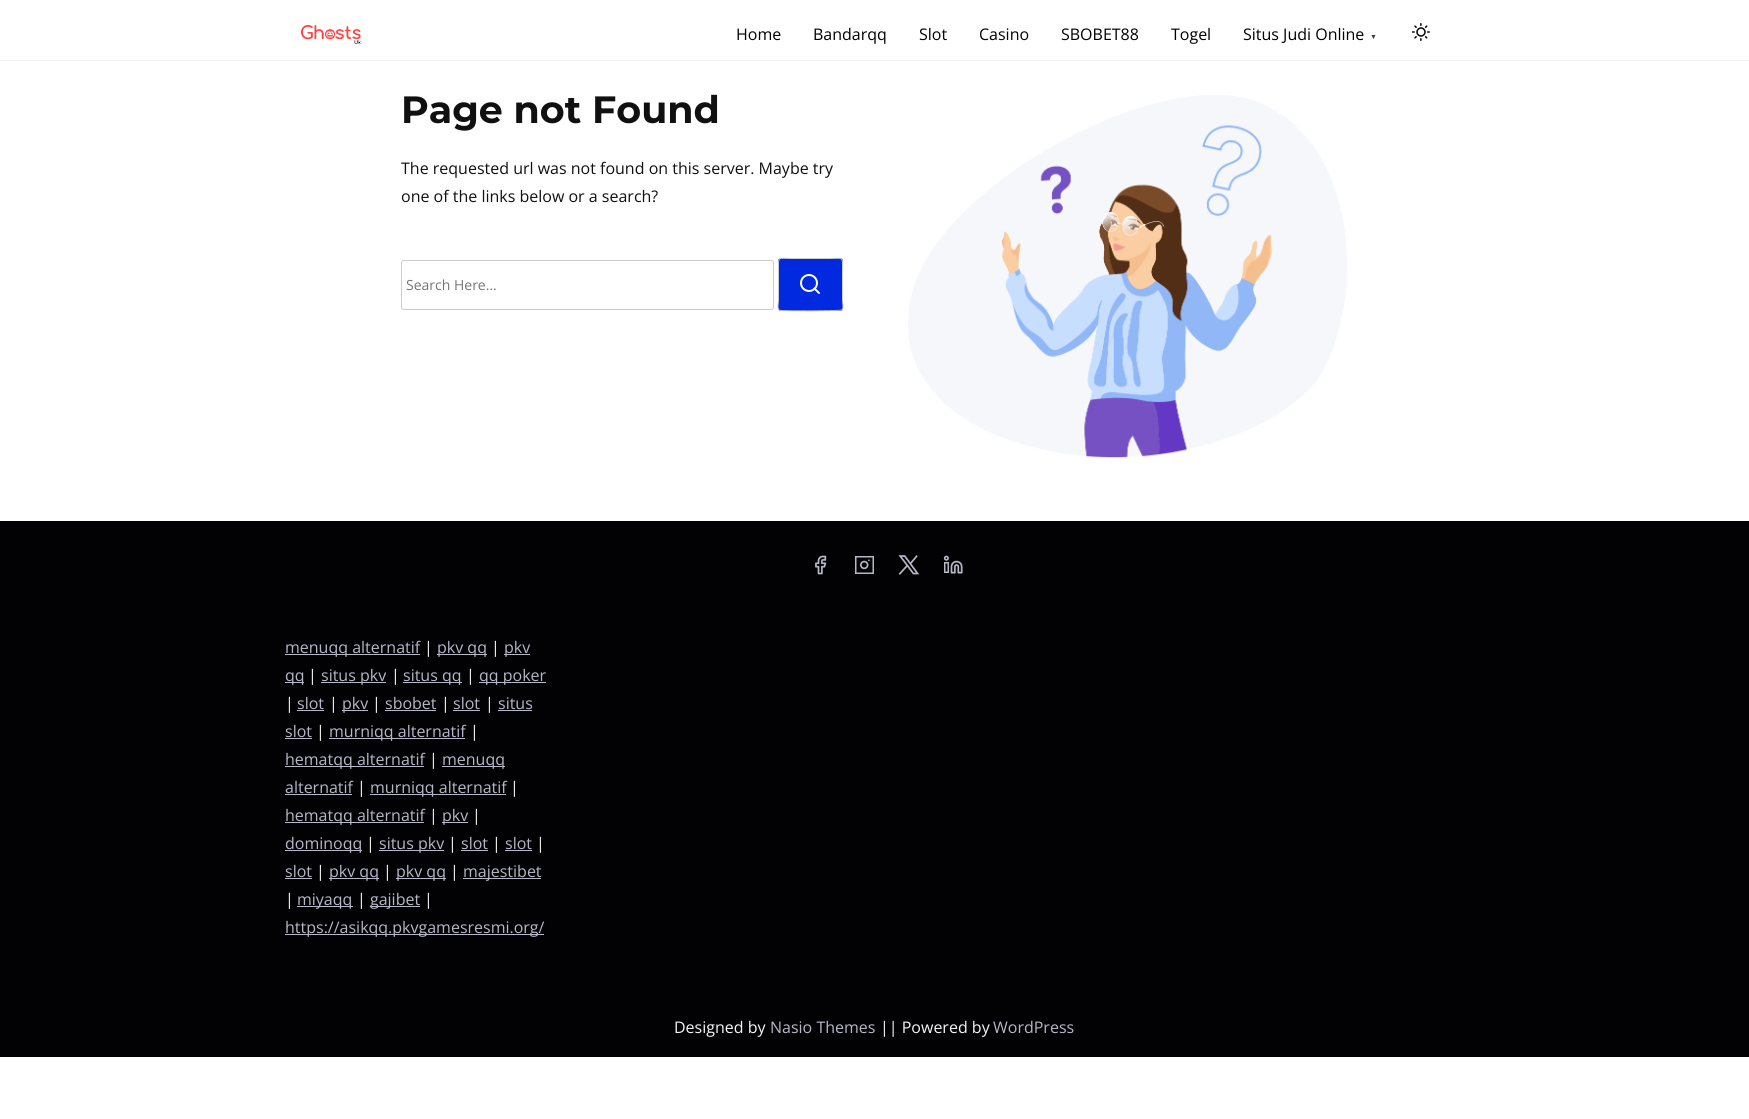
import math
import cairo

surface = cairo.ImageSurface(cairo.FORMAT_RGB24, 1749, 1119)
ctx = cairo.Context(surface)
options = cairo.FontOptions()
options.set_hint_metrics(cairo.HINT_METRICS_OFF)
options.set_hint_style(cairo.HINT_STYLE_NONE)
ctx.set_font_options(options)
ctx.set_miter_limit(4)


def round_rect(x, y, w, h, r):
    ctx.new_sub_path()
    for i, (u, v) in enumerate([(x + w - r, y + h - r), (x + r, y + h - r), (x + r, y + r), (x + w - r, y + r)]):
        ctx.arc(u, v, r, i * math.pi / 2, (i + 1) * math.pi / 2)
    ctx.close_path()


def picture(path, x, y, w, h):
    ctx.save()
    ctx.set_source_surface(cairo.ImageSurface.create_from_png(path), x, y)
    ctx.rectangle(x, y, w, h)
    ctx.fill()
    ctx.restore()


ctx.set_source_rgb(1, 1, 1)
ctx.paint()
ctx.set_source_rgb(0.949, 0.949, 0.949)
ctx.rectangle(0, 60, 1749, 1)
ctx.fill()
picture("img1.png", 301, 25, 60, 19)
ctx.select_font_face("Open Sans")
ctx.set_font_size(16)
ctx.set_source_rgb(0, 0, 0)
ctx.move_to(736, 40)
ctx.show_text("Home")
ctx.move_to(813, 40)
ctx.show_text("Bandarqq")
ctx.move_to(919, 40)
ctx.show_text("Slot")
ctx.move_to(979, 40)
ctx.show_text("Casino")
ctx.move_to(1061, 40)
ctx.show_text("SBOBET88")
ctx.move_to(1171, 40)
ctx.show_text("Togel")
ctx.move_to(1243, 40)
ctx.show_text("Situs Judi Online")
ctx.select_font_face("Liberation Serif")
ctx.set_font_size(7)
ctx.set_source_rgb(0.251, 0.251, 0.251)
ctx.move_to(1370, 39)
ctx.show_text("▼")
picture("img2.png", 1412, 23, 18, 18)
ctx.select_font_face("Montserrat", cairo.FONT_SLANT_NORMAL, cairo.FONT_WEIGHT_BOLD)
ctx.set_font_size(38)
ctx.set_source_rgb(0.063, 0.063, 0.067)
ctx.move_to(401, 123)
ctx.show_text("Page not Found")
ctx.select_font_face("Open Sans")
ctx.set_font_size(16)
ctx.move_to(401, 174)
ctx.show_text("The requested url was not found on this server. Maybe try")
ctx.move_to(401, 202)
ctx.show_text("one of the links below or a search?")
round_rect(401.5, 260.5, 372, 49, 2.5)
ctx.set_source_rgb(0.8, 0.8, 0.8)
ctx.set_line_width(1)
ctx.stroke()
ctx.set_font_size(14)
ctx.set_source_rgb(0.459, 0.459, 0.459)
ctx.move_to(406, 290)
ctx.show_text("Search Here...")
ctx.set_source_rgb(0, 0.161, 0.878)
round_rect(778, 258, 65, 53, 3)
ctx.fill()
ctx.new_path()
ctx.move_to(842, 310)
ctx.line_to(841.5, 310)
ctx.curve_to(840.5, 311, 786, 311, 781, 310.5)
ctx.line_to(779, 310)
ctx.set_source_rgb(0.733, 0.733, 0.733)
ctx.stroke()
ctx.new_path()
ctx.move_to(779, 310)
ctx.curve_to(777, 307.5, 778.5, 303.5, 778.5, 300)
ctx.line_to(778.5, 269)
ctx.curve_to(778.5, 256, 777.5, 258.5, 791, 258.5)
ctx.line_to(830, 258.5)
ctx.curve_to(843.5, 258.5, 842.5, 256, 842.5, 269)
ctx.line_to(842.5, 300)
ctx.curve_to(842.5, 303.5, 844, 307.5, 842, 310)
ctx.set_source_rgb(0.8, 0.8, 0.8)
ctx.stroke()
ctx.arc(809, 283, 8, 0, 2 * math.pi)
ctx.set_source_rgb(1, 1, 1)
ctx.set_line_width(2)
ctx.stroke()
ctx.new_path()
ctx.move_to(819, 293)
ctx.line_to(814.5, 288.5)
ctx.set_line_cap(cairo.LINE_CAP_ROUND)
ctx.set_line_join(cairo.LINE_JOIN_ROUND)
ctx.stroke()
picture("img3.png", 908, 95, 439, 363)
ctx.set_source_rgb(0.008, 0.008, 0.02)
ctx.rectangle(0, 521, 1749, 536)
ctx.fill()
picture("img4.png", 815, 555, 12, 20)
picture("img5.png", 855, 556, 19, 18)
picture("img6.png", 898, 555, 21, 20)
picture("img7.png", 943, 555, 20, 19)
ctx.set_source_rgb(0.718, 0.718, 0.78)
ctx.rectangle(285, 654, 135, 1)
ctx.fill()
ctx.set_font_size(16)
ctx.move_to(285, 653)
ctx.show_text("menuqq alternatif")
ctx.set_source_rgb(0.961, 0.961, 0.961)
ctx.move_to(424, 653)
ctx.show_text("|")
ctx.set_source_rgb(0.718, 0.718, 0.78)
ctx.rectangle(437, 654, 50, 1)
ctx.fill()
ctx.move_to(437, 653)
ctx.show_text("pkv qq")
ctx.set_source_rgb(0.961, 0.961, 0.961)
ctx.move_to(491, 653)
ctx.show_text("|")
ctx.set_source_rgb(0.718, 0.718, 0.78)
ctx.rectangle(504, 654, 26, 1)
ctx.fill()
ctx.move_to(504, 653)
ctx.show_text("pkv")
ctx.rectangle(285, 682, 19, 1)
ctx.fill()
ctx.move_to(285, 681)
ctx.show_text("qq")
ctx.set_source_rgb(0.961, 0.961, 0.961)
ctx.move_to(308, 681)
ctx.show_text("|")
ctx.set_source_rgb(0.718, 0.718, 0.78)
ctx.rectangle(321, 682, 65, 1)
ctx.fill()
ctx.move_to(321, 681)
ctx.show_text("situs pkv")
ctx.set_source_rgb(0.961, 0.961, 0.961)
ctx.move_to(391, 681)
ctx.show_text("|")
ctx.set_source_rgb(0.718, 0.718, 0.78)
ctx.rectangle(403, 682, 59, 1)
ctx.fill()
ctx.move_to(403, 681)
ctx.show_text("situs qq")
ctx.set_source_rgb(0.961, 0.961, 0.961)
ctx.move_to(466, 681)
ctx.show_text("|")
ctx.set_source_rgb(0.718, 0.718, 0.78)
ctx.rectangle(479, 682, 67, 1)
ctx.fill()
ctx.move_to(479, 681)
ctx.show_text("qq poker")
ctx.set_source_rgb(0.961, 0.961, 0.961)
ctx.move_to(285, 709)
ctx.show_text("|")
ctx.set_source_rgb(0.718, 0.718, 0.78)
ctx.move_to(297, 709)
ctx.show_text("slot")
ctx.rectangle(297, 710, 27, 1)
ctx.fill()
ctx.set_source_rgb(0.961, 0.961, 0.961)
ctx.move_to(329, 709)
ctx.show_text("|")
ctx.set_source_rgb(0.718, 0.718, 0.78)
ctx.rectangle(342, 710, 26, 1)
ctx.fill()
ctx.move_to(342, 709)
ctx.show_text("pkv")
ctx.set_source_rgb(0.961, 0.961, 0.961)
ctx.move_to(372, 709)
ctx.show_text("|")
ctx.set_source_rgb(0.718, 0.718, 0.78)
ctx.move_to(385, 709)
ctx.show_text("sbobet")
ctx.rectangle(385, 710, 51, 1)
ctx.fill()
ctx.set_source_rgb(0.961, 0.961, 0.961)
ctx.move_to(441, 709)
ctx.show_text("|")
ctx.set_source_rgb(0.718, 0.718, 0.78)
ctx.move_to(453, 709)
ctx.show_text("slot")
ctx.rectangle(453, 710, 27, 1)
ctx.fill()
ctx.set_source_rgb(0.961, 0.961, 0.961)
ctx.move_to(485, 709)
ctx.show_text("|")
ctx.set_source_rgb(0.718, 0.718, 0.78)
ctx.move_to(498, 709)
ctx.show_text("situs")
ctx.rectangle(498, 710, 34, 1)
ctx.fill()
ctx.move_to(285, 737)
ctx.show_text("slot")
ctx.rectangle(285, 738, 27, 1)
ctx.fill()
ctx.set_source_rgb(0.961, 0.961, 0.961)
ctx.move_to(316, 737)
ctx.show_text("|")
ctx.set_source_rgb(0.718, 0.718, 0.78)
ctx.rectangle(329, 738, 136, 1)
ctx.fill()
ctx.move_to(329, 737)
ctx.show_text("murniqq alternatif")
ctx.set_source_rgb(0.961, 0.961, 0.961)
ctx.move_to(470, 737)
ctx.show_text("|")
ctx.set_source_rgb(0.718, 0.718, 0.78)
ctx.rectangle(285, 766, 139, 1)
ctx.fill()
ctx.move_to(285, 765)
ctx.show_text("hematqq alternatif")
ctx.set_source_rgb(0.961, 0.961, 0.961)
ctx.move_to(429, 765)
ctx.show_text("|")
ctx.set_source_rgb(0.718, 0.718, 0.78)
ctx.rectangle(442, 766, 63, 1)
ctx.fill()
ctx.move_to(442, 765)
ctx.show_text("menuqq")
ctx.move_to(285, 793)
ctx.show_text("alternatif")
ctx.rectangle(285, 794, 67, 1)
ctx.fill()
ctx.set_source_rgb(0.961, 0.961, 0.961)
ctx.move_to(357, 793)
ctx.show_text("|")
ctx.set_source_rgb(0.718, 0.718, 0.78)
ctx.rectangle(370, 794, 136, 1)
ctx.fill()
ctx.move_to(370, 793)
ctx.show_text("murniqq alternatif")
ctx.set_source_rgb(0.961, 0.961, 0.961)
ctx.move_to(510, 793)
ctx.show_text("|")
ctx.set_source_rgb(0.718, 0.718, 0.78)
ctx.rectangle(285, 822, 139, 1)
ctx.fill()
ctx.move_to(285, 821)
ctx.show_text("hematqq alternatif")
ctx.set_source_rgb(0.961, 0.961, 0.961)
ctx.move_to(429, 821)
ctx.show_text("|")
ctx.set_source_rgb(0.718, 0.718, 0.78)
ctx.rectangle(442, 822, 26, 1)
ctx.fill()
ctx.move_to(442, 821)
ctx.show_text("pkv")
ctx.set_source_rgb(0.961, 0.961, 0.961)
ctx.move_to(472, 821)
ctx.show_text("|")
ctx.set_source_rgb(0.718, 0.718, 0.78)
ctx.rectangle(285, 850, 77, 1)
ctx.fill()
ctx.move_to(285, 849)
ctx.show_text("dominoqq")
ctx.set_source_rgb(0.961, 0.961, 0.961)
ctx.move_to(366, 849)
ctx.show_text("|")
ctx.set_source_rgb(0.718, 0.718, 0.78)
ctx.rectangle(379, 850, 65, 1)
ctx.fill()
ctx.move_to(379, 849)
ctx.show_text("situs pkv")
ctx.set_source_rgb(0.961, 0.961, 0.961)
ctx.move_to(448, 849)
ctx.show_text("|")
ctx.set_source_rgb(0.718, 0.718, 0.78)
ctx.move_to(461, 849)
ctx.show_text("slot")
ctx.rectangle(461, 850, 27, 1)
ctx.fill()
ctx.set_source_rgb(0.961, 0.961, 0.961)
ctx.move_to(492, 849)
ctx.show_text("|")
ctx.set_source_rgb(0.718, 0.718, 0.78)
ctx.move_to(505, 849)
ctx.show_text("slot")
ctx.rectangle(505, 850, 27, 1)
ctx.fill()
ctx.set_source_rgb(0.961, 0.961, 0.961)
ctx.move_to(536, 849)
ctx.show_text("|")
ctx.set_source_rgb(0.718, 0.718, 0.78)
ctx.move_to(285, 877)
ctx.show_text("slot")
ctx.rectangle(285, 878, 27, 1)
ctx.fill()
ctx.set_source_rgb(0.961, 0.961, 0.961)
ctx.move_to(316, 877)
ctx.show_text("|")
ctx.set_source_rgb(0.718, 0.718, 0.78)
ctx.rectangle(329, 878, 50, 1)
ctx.fill()
ctx.move_to(329, 877)
ctx.show_text("pkv qq")
ctx.set_source_rgb(0.961, 0.961, 0.961)
ctx.move_to(383, 877)
ctx.show_text("|")
ctx.set_source_rgb(0.718, 0.718, 0.78)
ctx.rectangle(396, 878, 50, 1)
ctx.fill()
ctx.move_to(396, 877)
ctx.show_text("pkv qq")
ctx.set_source_rgb(0.961, 0.961, 0.961)
ctx.move_to(450, 877)
ctx.show_text("|")
ctx.set_source_rgb(0.718, 0.718, 0.78)
ctx.rectangle(463, 878, 78, 1)
ctx.fill()
ctx.move_to(463, 877)
ctx.show_text("majestibet")
ctx.set_source_rgb(0.961, 0.961, 0.961)
ctx.move_to(285, 905)
ctx.show_text("|")
ctx.set_source_rgb(0.718, 0.718, 0.78)
ctx.rectangle(297, 906, 56, 1)
ctx.fill()
ctx.move_to(297, 905)
ctx.show_text("miyaqq")
ctx.set_source_rgb(0.961, 0.961, 0.961)
ctx.move_to(357, 905)
ctx.show_text("|")
ctx.set_source_rgb(0.718, 0.718, 0.78)
ctx.rectangle(370, 906, 50, 1)
ctx.fill()
ctx.move_to(370, 905)
ctx.show_text("gajibet")
ctx.set_source_rgb(0.961, 0.961, 0.961)
ctx.move_to(424, 905)
ctx.show_text("|")
ctx.set_source_rgb(0.718, 0.718, 0.78)
ctx.rectangle(285, 934, 259, 1)
ctx.fill()
ctx.move_to(285, 933)
ctx.show_text("https://asikqq.pkvgamesresmi.org/")
ctx.set_source_rgb(0.961, 0.961, 0.961)
ctx.move_to(674, 1033)
ctx.show_text("Designed by")
ctx.set_source_rgb(0.718, 0.718, 0.78)
ctx.move_to(770, 1033)
ctx.show_text("Nasio Themes")
ctx.set_source_rgb(0.961, 0.961, 0.961)
ctx.move_to(880, 1033)
ctx.show_text("|| Powered by")
ctx.set_source_rgb(0.718, 0.718, 0.78)
ctx.move_to(993, 1033)
ctx.show_text("WordPress")
surface.write_to_png("page.png")
